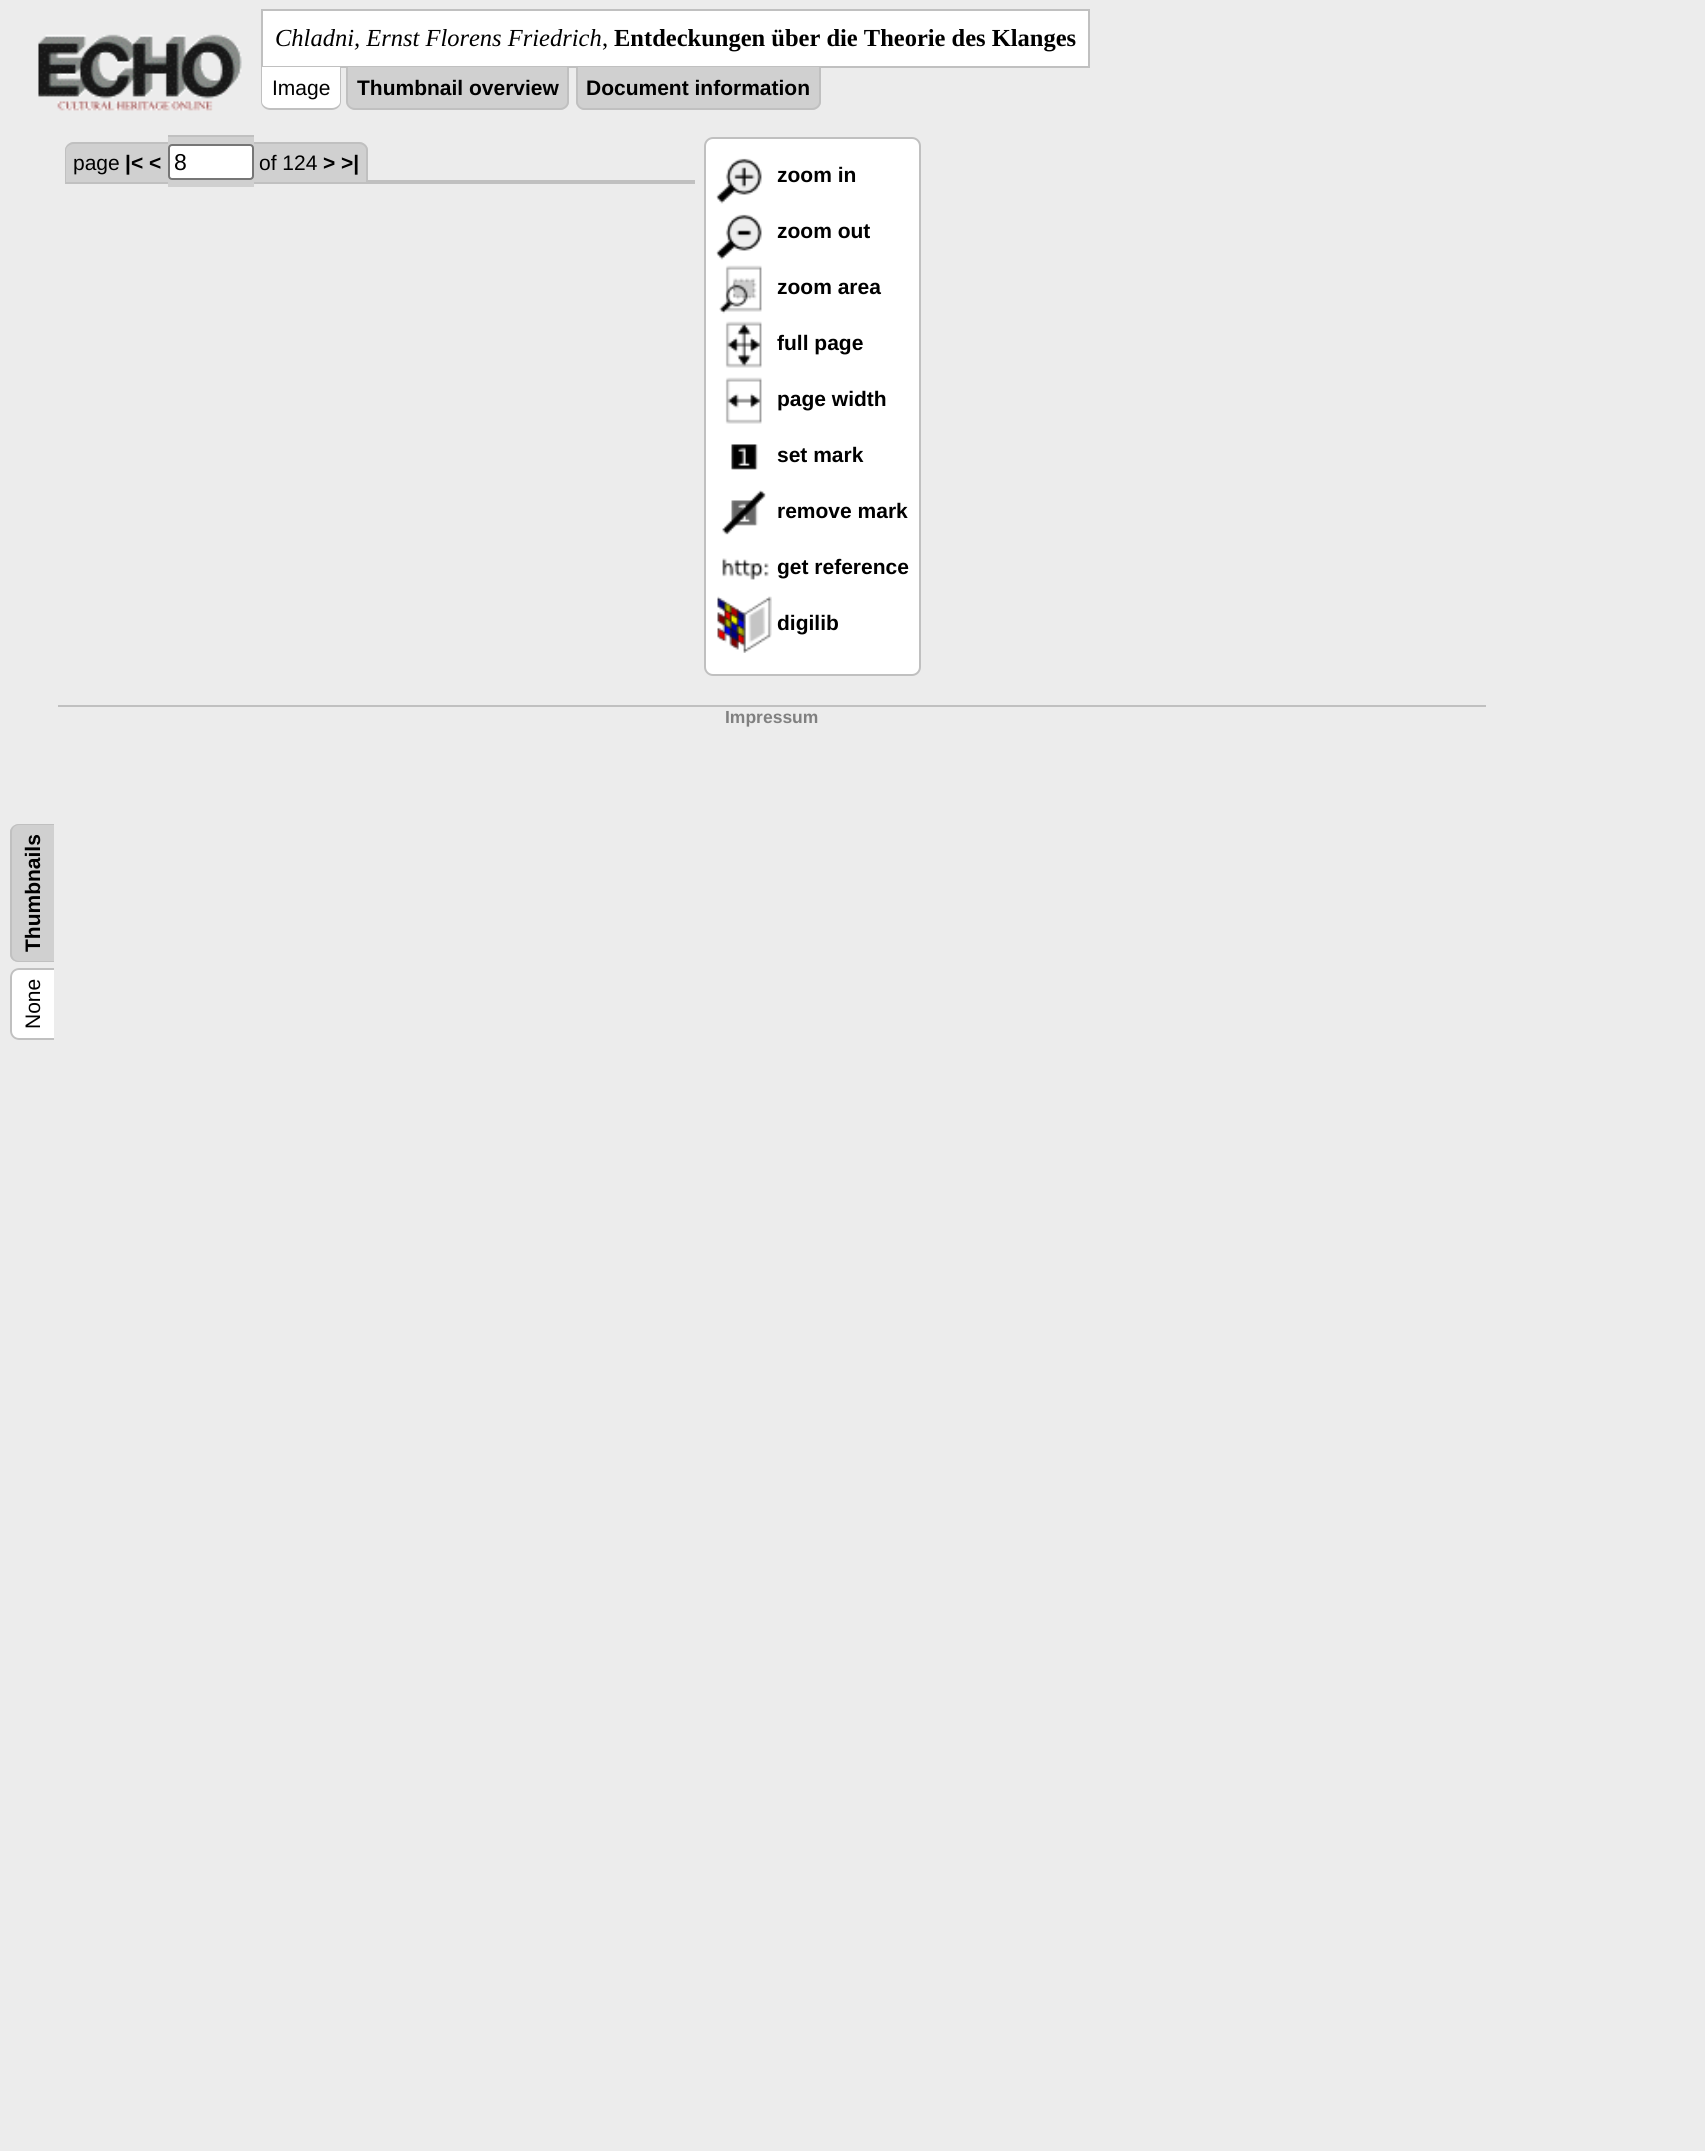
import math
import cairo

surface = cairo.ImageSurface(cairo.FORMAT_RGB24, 1705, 2151)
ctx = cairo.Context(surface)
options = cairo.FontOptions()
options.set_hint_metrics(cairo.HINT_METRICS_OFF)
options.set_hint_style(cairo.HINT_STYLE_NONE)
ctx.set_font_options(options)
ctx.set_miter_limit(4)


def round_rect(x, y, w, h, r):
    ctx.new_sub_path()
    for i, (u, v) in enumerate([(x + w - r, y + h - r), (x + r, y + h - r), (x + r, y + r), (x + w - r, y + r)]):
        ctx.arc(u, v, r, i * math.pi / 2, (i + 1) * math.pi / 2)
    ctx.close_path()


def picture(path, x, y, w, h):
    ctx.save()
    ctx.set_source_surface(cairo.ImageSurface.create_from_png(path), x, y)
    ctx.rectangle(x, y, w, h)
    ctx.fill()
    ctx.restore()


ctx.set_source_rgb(0.922, 0.922, 0.922)
ctx.paint()
picture("img1.png", 38, 34, 204, 77)
ctx.set_source_rgb(1, 1, 1)
ctx.rectangle(262, 10, 827, 57)
ctx.fill_preserve()
ctx.set_source_rgb(0.753, 0.753, 0.753)
ctx.stroke()
ctx.select_font_face("Liberation Serif", cairo.FONT_SLANT_ITALIC)
ctx.set_font_size(24.5)
ctx.set_source_rgb(0, 0, 0)
ctx.move_to(275, 46)
ctx.show_text("Chladni, Ernst Florens Friedrich")
ctx.select_font_face("Liberation Serif")
ctx.move_to(602, 46)
ctx.show_text(",")
ctx.select_font_face("Liberation Serif", cairo.FONT_SLANT_NORMAL, cairo.FONT_WEIGHT_BOLD)
ctx.move_to(614, 46)
ctx.show_text("Entdeckungen über die Theorie des Klanges")
ctx.set_source_rgb(1, 1, 1)
ctx.new_path()
ctx.move_to(261, 67)
ctx.line_to(341, 67)
ctx.line_to(341, 101)
ctx.curve_to(341, 106, 337, 110, 332, 110)
ctx.line_to(270, 110)
ctx.curve_to(265, 110, 261, 106, 261, 101)
ctx.close_path()
ctx.fill()
ctx.set_source_rgb(0.753, 0.753, 0.753)
ctx.set_fill_rule(cairo.FILL_RULE_EVEN_ODD)
ctx.new_path()
ctx.move_to(261, 66)
ctx.line_to(341, 66)
ctx.line_to(341, 102)
ctx.curve_to(341, 106, 337, 110, 332, 110)
ctx.line_to(270, 110)
ctx.curve_to(265, 110, 261, 106, 261, 102)
ctx.close_path()
ctx.move_to(262, 66)
ctx.line_to(340, 66)
ctx.line_to(340, 102)
ctx.curve_to(340, 105, 336, 108, 332, 108)
ctx.line_to(270, 108)
ctx.curve_to(266, 108, 262, 105, 262, 102)
ctx.close_path()
ctx.fill()
ctx.select_font_face("Liberation Sans")
ctx.set_font_size(21)
ctx.set_source_rgb(0, 0, 0)
ctx.move_to(272, 95)
ctx.show_text("Image")
ctx.set_source_rgb(0.816, 0.816, 0.816)
ctx.new_path()
ctx.move_to(347, 67)
ctx.line_to(569, 67)
ctx.line_to(569, 101)
ctx.curve_to(569, 106, 565, 110, 560, 110)
ctx.line_to(356, 110)
ctx.curve_to(351, 110, 347, 106, 347, 101)
ctx.close_path()
ctx.fill()
ctx.set_source_rgb(0.753, 0.753, 0.753)
ctx.new_path()
ctx.move_to(346, 66)
ctx.line_to(569, 66)
ctx.line_to(569, 102)
ctx.curve_to(569, 106, 565, 110, 560, 110)
ctx.line_to(355, 110)
ctx.curve_to(350, 110, 346, 106, 346, 102)
ctx.close_path()
ctx.move_to(348, 66)
ctx.line_to(567, 66)
ctx.line_to(567, 102)
ctx.curve_to(567, 105, 564, 108, 560, 108)
ctx.line_to(355, 108)
ctx.curve_to(351, 108, 348, 105, 348, 102)
ctx.close_path()
ctx.fill()
ctx.select_font_face("Liberation Sans", cairo.FONT_SLANT_NORMAL, cairo.FONT_WEIGHT_BOLD)
ctx.set_source_rgb(0, 0, 0)
ctx.move_to(357, 95)
ctx.show_text("Thumbnail overview")
ctx.set_source_rgb(0.816, 0.816, 0.816)
ctx.new_path()
ctx.move_to(576, 67)
ctx.line_to(821, 67)
ctx.line_to(821, 101)
ctx.curve_to(821, 106, 817, 110, 812, 110)
ctx.line_to(585, 110)
ctx.curve_to(580, 110, 576, 106, 576, 101)
ctx.close_path()
ctx.fill()
ctx.set_source_rgb(0.753, 0.753, 0.753)
ctx.new_path()
ctx.move_to(576, 66)
ctx.line_to(821, 66)
ctx.line_to(821, 102)
ctx.curve_to(821, 106, 817, 110, 812, 110)
ctx.line_to(584, 110)
ctx.curve_to(580, 110, 576, 106, 576, 102)
ctx.close_path()
ctx.move_to(578, 66)
ctx.line_to(819, 66)
ctx.line_to(819, 102)
ctx.curve_to(819, 105, 816, 108, 812, 108)
ctx.line_to(584, 108)
ctx.curve_to(581, 108, 578, 105, 578, 102)
ctx.close_path()
ctx.fill()
ctx.set_source_rgb(0, 0, 0)
ctx.move_to(586, 95)
ctx.show_text("Document information")
ctx.set_source_rgb(0.753, 0.753, 0.753)
ctx.rectangle(65, 180, 630, 4)
ctx.fill()
ctx.set_source_rgb(0.816, 0.816, 0.816)
ctx.new_path()
ctx.move_to(74, 142)
ctx.line_to(126, 142)
ctx.line_to(126, 182)
ctx.line_to(65, 182)
ctx.line_to(65, 151)
ctx.curve_to(65, 146, 69, 142, 74, 142)
ctx.close_path()
ctx.fill()
ctx.set_source_rgb(0.753, 0.753, 0.753)
ctx.new_path()
ctx.move_to(74, 142)
ctx.line_to(126, 142)
ctx.line_to(126, 182)
ctx.line_to(65, 182)
ctx.line_to(65, 150)
ctx.curve_to(65, 146, 69, 142, 74, 142)
ctx.close_path()
ctx.move_to(74, 144)
ctx.line_to(126, 144)
ctx.line_to(126, 182)
ctx.line_to(66, 182)
ctx.line_to(66, 150)
ctx.curve_to(66, 147, 70, 144, 74, 144)
ctx.close_path()
ctx.fill()
ctx.set_source_rgb(0.816, 0.816, 0.816)
ctx.rectangle(126, 144, 18, 38)
ctx.fill()
ctx.set_source_rgb(0.753, 0.753, 0.753)
ctx.rectangle(126, 142, 18, 2)
ctx.fill()
ctx.set_source_rgb(0.816, 0.816, 0.816)
ctx.rectangle(144, 142, 5, 40)
ctx.fill()
ctx.set_source_rgb(0.753, 0.753, 0.753)
ctx.rectangle(144, 142, 17, 2)
ctx.fill()
ctx.set_source_rgb(0.816, 0.816, 0.816)
ctx.rectangle(149, 144, 12, 38)
ctx.fill()
ctx.rectangle(161, 142, 7, 40)
ctx.fill()
ctx.set_source_rgb(0.753, 0.753, 0.753)
ctx.rectangle(161, 142, 7, 2)
ctx.fill()
ctx.set_source_rgb(0.816, 0.816, 0.816)
ctx.rectangle(168, 137, 86, 50)
ctx.fill()
ctx.set_source_rgb(0.753, 0.753, 0.753)
ctx.rectangle(168, 135, 86, 2)
ctx.fill()
ctx.set_source_rgb(0.816, 0.816, 0.816)
ctx.rectangle(254, 142, 5, 40)
ctx.fill()
ctx.set_source_rgb(0.753, 0.753, 0.753)
ctx.rectangle(254, 142, 82, 2)
ctx.fill()
ctx.set_source_rgb(0.816, 0.816, 0.816)
ctx.rectangle(259, 144, 77, 38)
ctx.fill()
ctx.rectangle(336, 142, 5, 40)
ctx.fill()
ctx.set_source_rgb(0.753, 0.753, 0.753)
ctx.rectangle(336, 142, 5, 2)
ctx.fill()
ctx.set_source_rgb(0.816, 0.816, 0.816)
ctx.new_path()
ctx.move_to(341, 142)
ctx.line_to(359, 142)
ctx.curve_to(364, 142, 368, 146, 368, 151)
ctx.line_to(368, 182)
ctx.line_to(341, 182)
ctx.close_path()
ctx.fill()
ctx.set_source_rgb(0.753, 0.753, 0.753)
ctx.new_path()
ctx.move_to(341, 142)
ctx.line_to(359, 142)
ctx.curve_to(364, 142, 368, 146, 368, 150)
ctx.line_to(368, 182)
ctx.line_to(341, 182)
ctx.close_path()
ctx.move_to(341, 144)
ctx.line_to(359, 144)
ctx.curve_to(363, 144, 366, 147, 366, 150)
ctx.line_to(366, 182)
ctx.line_to(341, 182)
ctx.close_path()
ctx.fill()
ctx.select_font_face("Liberation Sans")
ctx.set_source_rgb(0, 0, 0)
ctx.move_to(73, 170)
ctx.show_text("page")
ctx.select_font_face("Liberation Sans", cairo.FONT_SLANT_NORMAL, cairo.FONT_WEIGHT_BOLD)
ctx.move_to(125, 170)
ctx.show_text("|< <")
ctx.set_source_rgb(1, 1, 1)
round_rect(169, 145, 84, 34, 3)
ctx.fill_preserve()
ctx.set_source_rgb(0.463, 0.463, 0.463)
ctx.stroke()
ctx.select_font_face("Liberation Sans")
ctx.set_font_size(23)
ctx.set_source_rgb(0, 0, 0)
ctx.move_to(174, 170)
ctx.show_text("8")
ctx.set_font_size(21)
ctx.move_to(259, 170)
ctx.show_text("of 124")
ctx.select_font_face("Liberation Sans", cairo.FONT_SLANT_NORMAL, cairo.FONT_WEIGHT_BOLD)
ctx.move_to(323, 170)
ctx.show_text("> >|")
ctx.set_source_rgb(1, 1, 1)
round_rect(705, 138, 215, 537, 8)
ctx.fill_preserve()
ctx.set_source_rgb(0.753, 0.753, 0.753)
ctx.stroke()
picture("img2.png", 716, 158, 46, 46)
ctx.set_source_rgb(0, 0, 0)
ctx.move_to(777, 182)
ctx.show_text("zoom in")
picture("img3.png", 716, 214, 46, 46)
ctx.move_to(777, 238)
ctx.show_text("zoom out")
picture("img4.png", 719, 265, 43, 49)
ctx.move_to(777, 294)
ctx.show_text("zoom area")
picture("img5.png", 725, 321, 37, 47)
ctx.move_to(777, 350)
ctx.show_text("full page")
picture("img6.png", 725, 377, 37, 47)
ctx.move_to(777, 406)
ctx.show_text("page width")
picture("img7.png", 731, 444, 27, 26)
ctx.move_to(777, 462)
ctx.show_text("set mark")
picture("img8.png", 722, 490, 44, 45)
ctx.move_to(777, 518)
ctx.show_text("remove mark")
picture("img9.png", 722, 558, 47, 22)
ctx.move_to(777, 574)
ctx.show_text("get reference")
picture("img10.png", 717, 596, 55, 57)
ctx.move_to(777, 630)
ctx.show_text("digilib")
ctx.set_source_rgb(0.816, 0.816, 0.816)
ctx.set_fill_rule(cairo.FILL_RULE_WINDING)
ctx.new_path()
ctx.move_to(10, 954)
ctx.line_to(10, 832)
ctx.curve_to(10, 828, 14, 824, 19, 824)
ctx.line_to(54, 824)
ctx.line_to(54, 962)
ctx.line_to(19, 962)
ctx.curve_to(14, 962, 10, 959, 10, 954)
ctx.close_path()
ctx.fill()
ctx.set_source_rgb(0.753, 0.753, 0.753)
ctx.set_fill_rule(cairo.FILL_RULE_EVEN_ODD)
ctx.new_path()
ctx.move_to(10, 954)
ctx.line_to(10, 832)
ctx.curve_to(10, 828, 14, 824, 19, 824)
ctx.line_to(54, 824)
ctx.line_to(54, 962)
ctx.line_to(19, 962)
ctx.curve_to(14, 962, 10, 959, 10, 954)
ctx.close_path()
ctx.move_to(12, 954)
ctx.line_to(12, 832)
ctx.curve_to(12, 828, 15, 825, 19, 825)
ctx.line_to(54, 825)
ctx.line_to(54, 961)
ctx.line_to(19, 961)
ctx.curve_to(15, 961, 12, 958, 12, 954)
ctx.close_path()
ctx.fill()
ctx.set_source_rgb(0, 0, 0)
ctx.save()
ctx.translate(40, 952)
ctx.rotate(-90 * math.pi / 180)
ctx.move_to(0, 0)
ctx.show_text("Thumbnails")
ctx.restore()
ctx.set_source_rgb(1, 1, 1)
ctx.set_fill_rule(cairo.FILL_RULE_WINDING)
ctx.new_path()
ctx.move_to(10, 1031)
ctx.line_to(10, 977)
ctx.curve_to(10, 972, 14, 968, 19, 968)
ctx.line_to(54, 968)
ctx.line_to(54, 1040)
ctx.line_to(19, 1040)
ctx.curve_to(14, 1040, 10, 1036, 10, 1031)
ctx.close_path()
ctx.fill()
ctx.set_source_rgb(0.753, 0.753, 0.753)
ctx.set_fill_rule(cairo.FILL_RULE_EVEN_ODD)
ctx.new_path()
ctx.move_to(10, 1031)
ctx.line_to(10, 977)
ctx.curve_to(10, 972, 14, 968, 19, 968)
ctx.line_to(54, 968)
ctx.line_to(54, 1040)
ctx.line_to(19, 1040)
ctx.curve_to(14, 1040, 10, 1036, 10, 1031)
ctx.close_path()
ctx.move_to(12, 1031)
ctx.line_to(12, 977)
ctx.curve_to(12, 973, 15, 970, 19, 970)
ctx.line_to(54, 970)
ctx.line_to(54, 1038)
ctx.line_to(19, 1038)
ctx.curve_to(15, 1038, 12, 1035, 12, 1031)
ctx.close_path()
ctx.fill()
ctx.select_font_face("Liberation Sans")
ctx.set_source_rgb(0, 0, 0)
ctx.save()
ctx.translate(40, 1029)
ctx.rotate(-90 * math.pi / 180)
ctx.move_to(0, 0)
ctx.show_text("None")
ctx.restore()
ctx.set_source_rgb(0.753, 0.753, 0.753)
ctx.rectangle(58, 705, 1428, 2)
ctx.fill()
ctx.select_font_face("Liberation Sans", cairo.FONT_SLANT_NORMAL, cairo.FONT_WEIGHT_BOLD)
ctx.set_font_size(17.5)
ctx.set_source_rgb(0.502, 0.502, 0.502)
ctx.move_to(725, 723)
ctx.show_text("Impressum")
surface.write_to_png("page.png")
